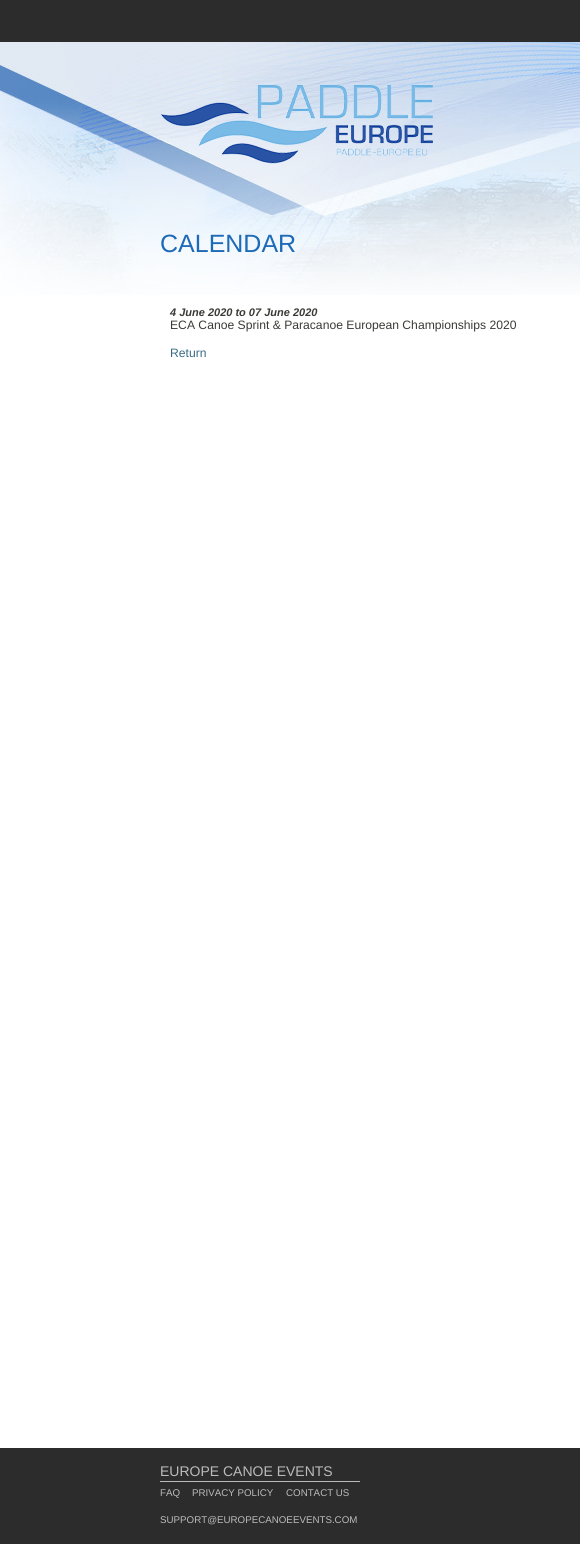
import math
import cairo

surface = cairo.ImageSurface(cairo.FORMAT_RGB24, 580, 1545)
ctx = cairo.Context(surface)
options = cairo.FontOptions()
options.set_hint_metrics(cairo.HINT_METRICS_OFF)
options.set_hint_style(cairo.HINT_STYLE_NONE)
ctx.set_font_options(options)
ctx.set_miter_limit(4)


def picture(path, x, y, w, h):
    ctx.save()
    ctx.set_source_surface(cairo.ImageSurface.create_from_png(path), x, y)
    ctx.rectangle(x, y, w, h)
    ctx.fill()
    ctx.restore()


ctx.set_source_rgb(1, 1, 1)
ctx.paint()
ctx.set_source_rgb(0.173, 0.173, 0.173)
ctx.rectangle(0, 0, 580, 42)
ctx.fill()
picture("img1.png", 0, 42, 580, 253)
ctx.select_font_face("Liberation Sans")
ctx.set_font_size(25)
ctx.set_source_rgb(0.114, 0.416, 0.714)
ctx.move_to(160, 252)
ctx.show_text("CALENDAR")
ctx.select_font_face("Liberation Sans", cairo.FONT_SLANT_ITALIC, cairo.FONT_WEIGHT_BOLD)
ctx.set_font_size(11)
ctx.set_source_rgb(0.227, 0.227, 0.212)
ctx.move_to(170, 316)
ctx.show_text("4 June 2020 to 07 June 2020")
ctx.select_font_face("Liberation Sans")
ctx.set_font_size(12.15)
ctx.move_to(170, 329)
ctx.show_text("ECA Canoe Sprint & Paracanoe European Championships 2020")
ctx.set_source_rgb(0.227, 0.42, 0.522)
ctx.move_to(170, 357)
ctx.show_text("Return")
ctx.set_source_rgb(0.173, 0.173, 0.173)
ctx.rectangle(0, 1448, 580, 96)
ctx.fill()
ctx.set_source_rgb(0.733, 0.733, 0.733)
ctx.rectangle(160, 1481, 200, 1)
ctx.fill()
ctx.set_font_size(14)
ctx.move_to(160, 1476)
ctx.show_text("EUROPE CANOE EVENTS")
ctx.set_font_size(9.75)
ctx.move_to(160, 1496)
ctx.show_text("FAQ")
ctx.move_to(192, 1496)
ctx.show_text("PRIVACY POLICY")
ctx.move_to(286, 1496)
ctx.show_text("CONTACT US")
ctx.move_to(160, 1523)
ctx.show_text("SUPPORT@EUROPECANOEEVENTS.COM")
surface.write_to_png("page.png")
